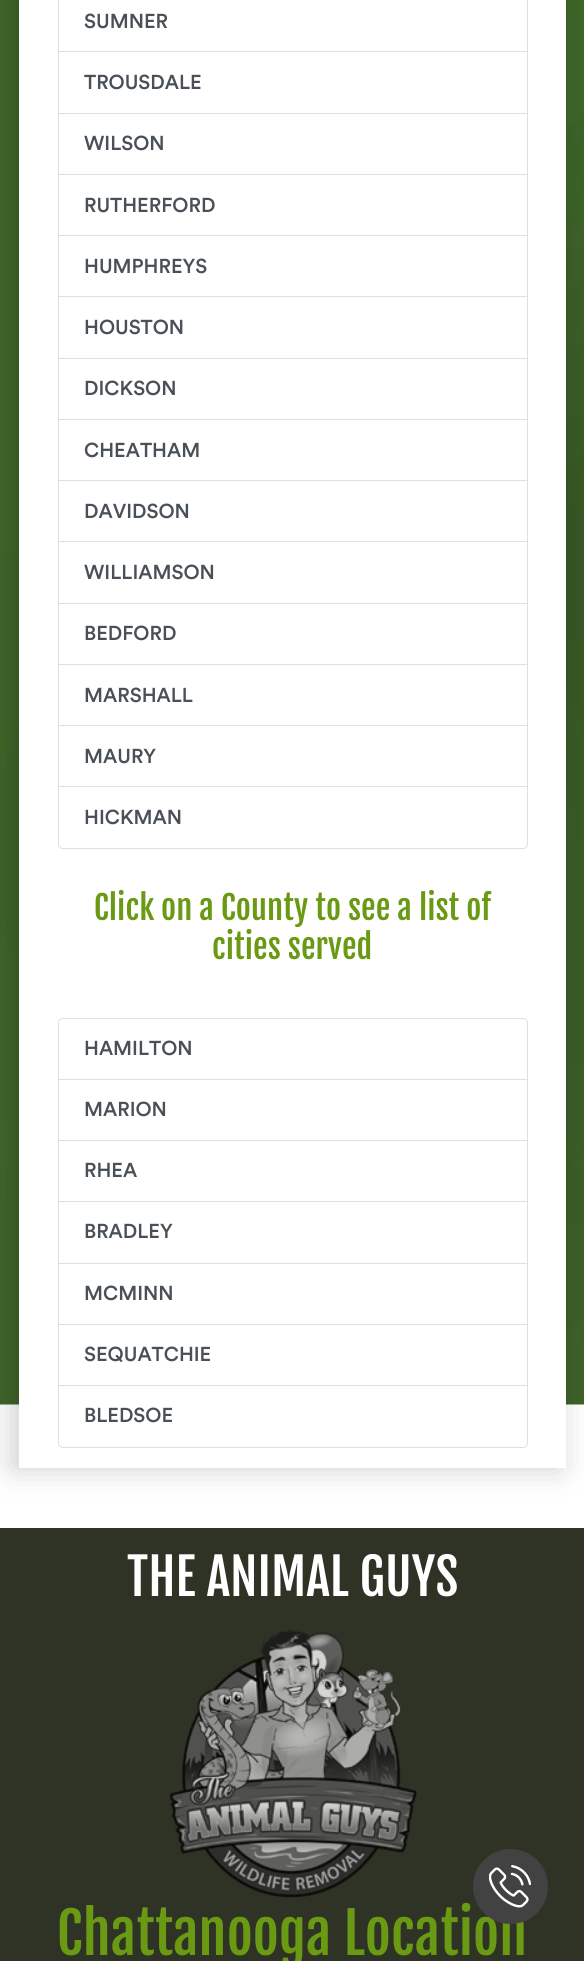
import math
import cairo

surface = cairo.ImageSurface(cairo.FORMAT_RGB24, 584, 1961)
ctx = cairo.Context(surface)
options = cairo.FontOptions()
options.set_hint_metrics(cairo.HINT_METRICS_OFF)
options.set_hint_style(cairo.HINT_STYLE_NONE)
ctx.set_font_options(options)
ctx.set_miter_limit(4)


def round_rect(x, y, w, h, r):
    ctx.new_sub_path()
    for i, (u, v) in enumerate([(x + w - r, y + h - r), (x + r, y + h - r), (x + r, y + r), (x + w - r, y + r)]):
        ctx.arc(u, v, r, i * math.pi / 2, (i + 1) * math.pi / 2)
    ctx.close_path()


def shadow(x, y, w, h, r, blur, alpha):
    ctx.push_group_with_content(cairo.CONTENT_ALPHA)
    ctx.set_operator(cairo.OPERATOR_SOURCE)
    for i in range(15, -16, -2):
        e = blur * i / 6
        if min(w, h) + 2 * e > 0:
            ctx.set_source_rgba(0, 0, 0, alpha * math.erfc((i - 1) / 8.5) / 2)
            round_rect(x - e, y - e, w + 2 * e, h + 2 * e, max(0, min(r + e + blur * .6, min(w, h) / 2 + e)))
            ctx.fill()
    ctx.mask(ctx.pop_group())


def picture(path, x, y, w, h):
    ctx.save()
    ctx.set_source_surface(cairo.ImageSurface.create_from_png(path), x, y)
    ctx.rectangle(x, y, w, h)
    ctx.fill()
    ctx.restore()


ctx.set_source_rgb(1, 1, 1)
ctx.paint()
picture("img1.png", 0, 0, 584, 1405)
ctx.set_source_rgb(0, 0, 0)
shadow(13, -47, 547, 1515, 0, 15.5, 0.2)
ctx.set_source_rgb(1, 1, 1)
ctx.rectangle(19, 0, 547, 1468)
ctx.fill()
ctx.rectangle(58.5, -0.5, 469, 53)
ctx.set_source_rgb(0.875, 0.875, 0.875)
ctx.set_line_width(1)
ctx.stroke()
ctx.select_font_face("Circular Medium")
ctx.set_font_size(20)
ctx.set_source_rgb(0.286, 0.314, 0.341)
ctx.move_to(84, 28)
ctx.show_text("SUMNER")
ctx.set_source_rgb(1, 1, 1)
ctx.rectangle(59, 52, 468, 1)
ctx.fill()
ctx.rectangle(58.5, 51.5, 469, 62)
ctx.set_source_rgb(0.875, 0.875, 0.875)
ctx.stroke()
ctx.set_source_rgb(0.286, 0.314, 0.341)
ctx.move_to(84, 89)
ctx.show_text("TROUSDALE")
ctx.rectangle(58.5, 113.5, 469, 61)
ctx.set_source_rgb(0.875, 0.875, 0.875)
ctx.stroke()
ctx.set_source_rgb(0.286, 0.314, 0.341)
ctx.move_to(84, 150)
ctx.show_text("WILSON")
ctx.rectangle(58.5, 174.5, 469, 61)
ctx.set_source_rgb(0.875, 0.875, 0.875)
ctx.stroke()
ctx.set_source_rgb(0.286, 0.314, 0.341)
ctx.move_to(84, 212)
ctx.show_text("RUTHERFORD")
ctx.rectangle(58.5, 235.5, 469, 62)
ctx.set_source_rgb(0.875, 0.875, 0.875)
ctx.stroke()
ctx.set_source_rgb(0.286, 0.314, 0.341)
ctx.move_to(84, 273)
ctx.show_text("HUMPHREYS")
ctx.set_source_rgb(1, 1, 1)
ctx.rectangle(59, 297, 468, 1)
ctx.fill()
ctx.rectangle(58.5, 296.5, 469, 62)
ctx.set_source_rgb(0.875, 0.875, 0.875)
ctx.stroke()
ctx.set_source_rgb(0.286, 0.314, 0.341)
ctx.move_to(84, 334)
ctx.show_text("HOUSTON")
ctx.rectangle(58.5, 358.5, 469, 61)
ctx.set_source_rgb(0.875, 0.875, 0.875)
ctx.stroke()
ctx.set_source_rgb(0.286, 0.314, 0.341)
ctx.move_to(84, 395)
ctx.show_text("DICKSON")
ctx.rectangle(58.5, 419.5, 469, 61)
ctx.set_source_rgb(0.875, 0.875, 0.875)
ctx.stroke()
ctx.set_source_rgb(0.286, 0.314, 0.341)
ctx.move_to(84, 457)
ctx.show_text("CHEATHAM")
ctx.rectangle(58.5, 480.5, 469, 62)
ctx.set_source_rgb(0.875, 0.875, 0.875)
ctx.stroke()
ctx.set_source_rgb(0.286, 0.314, 0.341)
ctx.move_to(84, 518)
ctx.show_text("DAVIDSON")
ctx.set_source_rgb(1, 1, 1)
ctx.rectangle(59, 542, 468, 1)
ctx.fill()
ctx.rectangle(58.5, 541.5, 469, 62)
ctx.set_source_rgb(0.875, 0.875, 0.875)
ctx.stroke()
ctx.set_source_rgb(0.286, 0.314, 0.341)
ctx.move_to(84, 579)
ctx.show_text("WILLIAMSON")
ctx.rectangle(58.5, 603.5, 469, 61)
ctx.set_source_rgb(0.875, 0.875, 0.875)
ctx.stroke()
ctx.set_source_rgb(0.286, 0.314, 0.341)
ctx.move_to(84, 640)
ctx.show_text("BEDFORD")
ctx.rectangle(58.5, 664.5, 469, 61)
ctx.set_source_rgb(0.875, 0.875, 0.875)
ctx.stroke()
ctx.set_source_rgb(0.286, 0.314, 0.341)
ctx.move_to(84, 702)
ctx.show_text("MARSHALL")
ctx.rectangle(58.5, 725.5, 469, 62)
ctx.set_source_rgb(0.875, 0.875, 0.875)
ctx.stroke()
ctx.set_source_rgb(0.286, 0.314, 0.341)
ctx.move_to(84, 763)
ctx.show_text("MAURY")
ctx.set_source_rgb(1, 1, 1)
ctx.new_path()
ctx.move_to(58.5, 786.5)
ctx.line_to(527.5, 786.5)
ctx.line_to(527.5, 844)
ctx.curve_to(527.5, 846.5, 525.5, 848.5, 523, 848.5)
ctx.line_to(63, 848.5)
ctx.curve_to(60.5, 848.5, 58.5, 846.5, 58.5, 844)
ctx.close_path()
ctx.fill_preserve()
ctx.set_source_rgb(0.875, 0.875, 0.875)
ctx.stroke()
ctx.set_source_rgb(0.286, 0.314, 0.341)
ctx.move_to(84, 824)
ctx.show_text("HICKMAN")
ctx.select_font_face("Fjalla One")
ctx.set_font_size(32.5)
ctx.set_source_rgb(0.416, 0.604, 0.075)
ctx.move_to(94, 920)
ctx.show_text("Click on a County to see a list of")
ctx.move_to(212, 959)
ctx.show_text("cities served")
ctx.new_path()
ctx.move_to(63, 1018.5)
ctx.line_to(523, 1018.5)
ctx.curve_to(525.5, 1018.5, 527.5, 1020.5, 527.5, 1023)
ctx.line_to(527.5, 1079.5)
ctx.line_to(58.5, 1079.5)
ctx.line_to(58.5, 1023)
ctx.curve_to(58.5, 1020.5, 60.5, 1018.5, 63, 1018.5)
ctx.close_path()
ctx.set_source_rgb(0.875, 0.875, 0.875)
ctx.stroke()
ctx.select_font_face("Circular Medium")
ctx.set_font_size(20)
ctx.set_source_rgb(0.286, 0.314, 0.341)
ctx.move_to(84, 1055)
ctx.show_text("HAMILTON")
ctx.rectangle(58.5, 1079.5, 469, 61)
ctx.set_source_rgb(0.875, 0.875, 0.875)
ctx.stroke()
ctx.set_source_rgb(0.286, 0.314, 0.341)
ctx.move_to(84, 1116)
ctx.show_text("MARION")
ctx.rectangle(58.5, 1140.5, 469, 62)
ctx.set_source_rgb(0.875, 0.875, 0.875)
ctx.stroke()
ctx.set_source_rgb(0.286, 0.314, 0.341)
ctx.move_to(84, 1177)
ctx.show_text("RHEA")
ctx.set_source_rgb(1, 1, 1)
ctx.rectangle(59, 1202, 468, 1)
ctx.fill()
ctx.rectangle(58.5, 1201.5, 469, 62)
ctx.set_source_rgb(0.875, 0.875, 0.875)
ctx.stroke()
ctx.set_source_rgb(0.286, 0.314, 0.341)
ctx.move_to(84, 1238)
ctx.show_text("BRADLEY")
ctx.rectangle(58.5, 1263.5, 469, 61)
ctx.set_source_rgb(0.875, 0.875, 0.875)
ctx.stroke()
ctx.set_source_rgb(0.286, 0.314, 0.341)
ctx.move_to(84, 1300)
ctx.show_text("MCMINN")
ctx.rectangle(58.5, 1324.5, 469, 61)
ctx.set_source_rgb(0.875, 0.875, 0.875)
ctx.stroke()
ctx.set_source_rgb(0.286, 0.314, 0.341)
ctx.move_to(84, 1361)
ctx.show_text("SEQUATCHIE")
ctx.set_source_rgb(1, 1, 1)
ctx.new_path()
ctx.move_to(58.5, 1385.5)
ctx.line_to(527.5, 1385.5)
ctx.line_to(527.5, 1443)
ctx.curve_to(527.5, 1445.5, 525.5, 1447.5, 523, 1447.5)
ctx.line_to(63, 1447.5)
ctx.curve_to(60.5, 1447.5, 58.5, 1445.5, 58.5, 1443)
ctx.close_path()
ctx.fill_preserve()
ctx.set_source_rgb(0.875, 0.875, 0.875)
ctx.stroke()
ctx.set_source_rgb(0.286, 0.314, 0.341)
ctx.move_to(84, 1422)
ctx.show_text("BLEDSOE")
ctx.set_source_rgb(0.184, 0.2, 0.145)
ctx.rectangle(0, 1528, 584, 433)
ctx.fill()
ctx.select_font_face("Fjalla One")
ctx.set_font_size(50)
ctx.set_source_rgb(1, 1, 1)
ctx.move_to(127, 1596)
ctx.show_text("THE ANIMAL GUYS")
ctx.set_font_size(56.25)
ctx.set_source_rgb(0.416, 0.604, 0.075)
ctx.move_to(57, 1955)
ctx.show_text("Chattanooga Location")
ctx.set_source_rgb(0.259, 0.259, 0.259)
ctx.new_path()
ctx.arc(510.5, 1886.5, 37.5, 0, 2 * math.pi)
ctx.fill()
picture("img2.png", 489, 1865, 42, 43)
picture("img3.png", 170, 1629, 247, 269)
surface.write_to_png("page.png")
